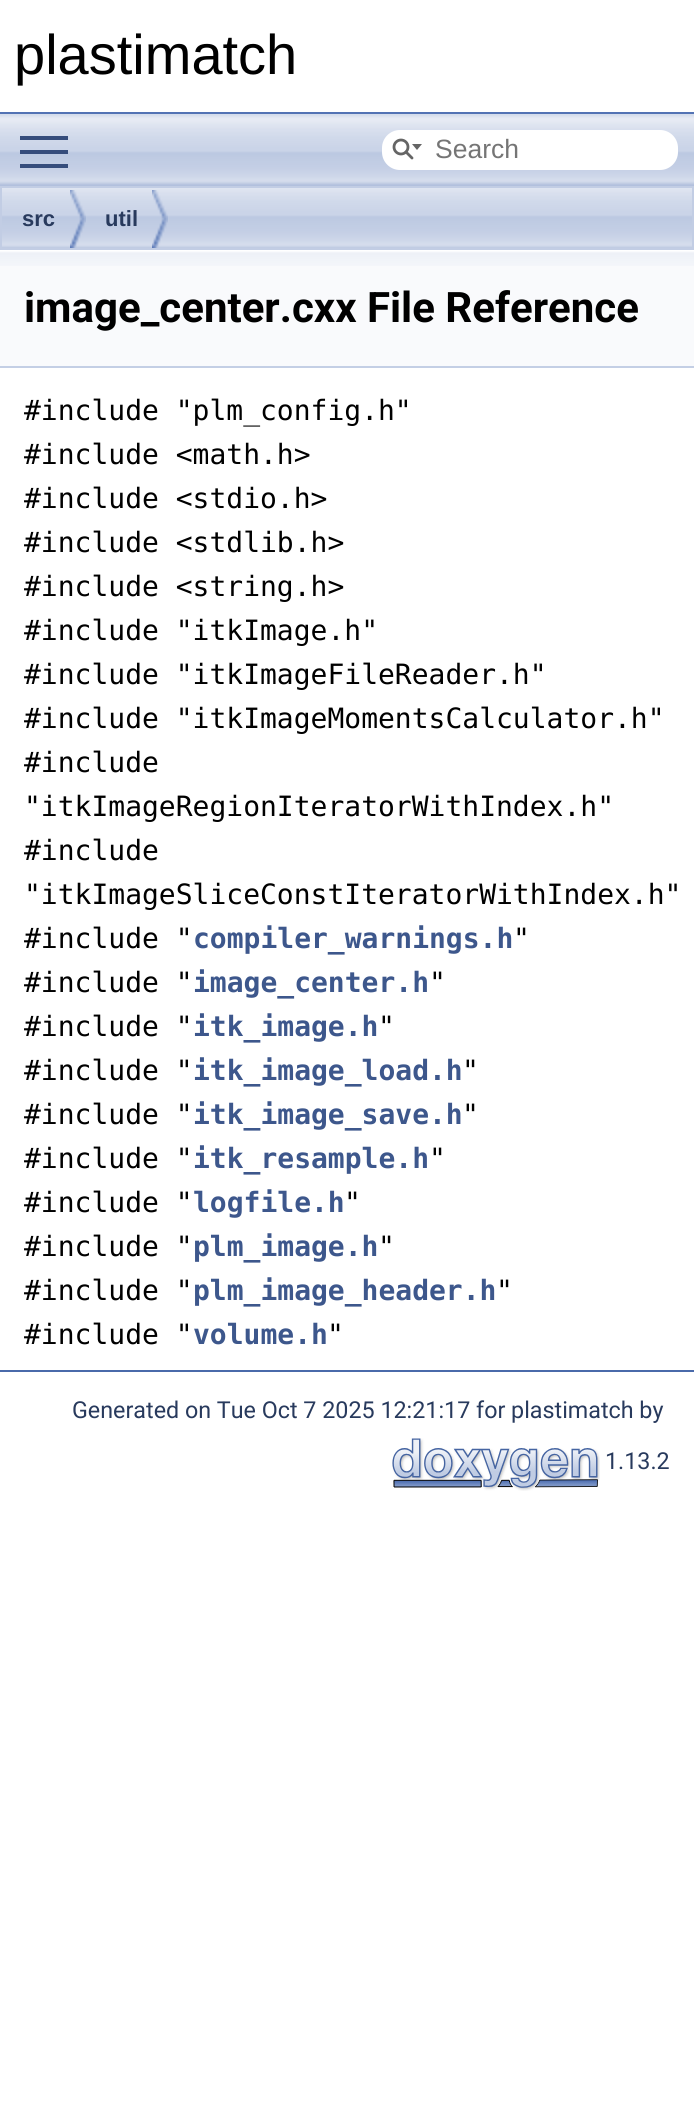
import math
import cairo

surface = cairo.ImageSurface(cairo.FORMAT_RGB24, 694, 2118)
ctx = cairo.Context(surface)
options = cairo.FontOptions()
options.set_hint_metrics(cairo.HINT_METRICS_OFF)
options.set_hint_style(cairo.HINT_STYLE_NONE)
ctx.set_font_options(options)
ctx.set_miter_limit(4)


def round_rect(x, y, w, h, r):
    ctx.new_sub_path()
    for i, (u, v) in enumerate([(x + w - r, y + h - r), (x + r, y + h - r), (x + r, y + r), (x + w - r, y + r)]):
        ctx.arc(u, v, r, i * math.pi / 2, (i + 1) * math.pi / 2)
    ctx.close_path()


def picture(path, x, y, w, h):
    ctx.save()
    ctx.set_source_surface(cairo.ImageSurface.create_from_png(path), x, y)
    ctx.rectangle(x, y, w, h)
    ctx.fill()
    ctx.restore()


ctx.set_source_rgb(1, 1, 1)
ctx.paint()
ctx.set_source_rgb(0.325, 0.451, 0.706)
ctx.rectangle(0, 112, 694, 2)
ctx.fill()
ctx.select_font_face("Liberation Sans")
ctx.set_font_size(56)
ctx.set_source_rgb(0, 0, 0)
ctx.move_to(14, 74)
ctx.show_text("plastimatch")
picture("img1.png", 0, 114, 694, 72)
ctx.set_source_rgb(0.212, 0.302, 0.486)
ctx.rectangle(20, 150, 48, 4)
ctx.fill()
ctx.rectangle(20, 136, 48, 4)
ctx.fill()
ctx.rectangle(20, 164, 48, 4)
ctx.fill()
ctx.set_source_rgb(1, 1, 1)
round_rect(382, 130, 296, 40, 18)
ctx.fill()
ctx.arc(401, 147, 7, 0, 2 * math.pi)
ctx.set_source_rgb(0.396, 0.396, 0.396)
ctx.set_line_width(2.8)
ctx.stroke()
ctx.new_path()
ctx.move_to(412, 144)
ctx.line_to(417, 150)
ctx.line_to(422, 144)
ctx.close_path()
ctx.fill()
ctx.new_path()
ctx.move_to(406, 152)
ctx.line_to(412, 158)
ctx.set_line_cap(cairo.LINE_CAP_ROUND)
ctx.stroke()
ctx.set_font_size(26.5)
ctx.set_source_rgb(0.459, 0.459, 0.459)
ctx.move_to(435, 158)
ctx.show_text("Search")
picture("img2.png", 2, 188, 690, 60)
ctx.rectangle(1, 187, 692, 62)
ctx.set_source_rgb(0.761, 0.804, 0.894)
ctx.set_line_width(2)
ctx.set_line_cap(cairo.LINE_CAP_BUTT)
ctx.stroke()
picture("img3.png", 70, 190, 16, 58)
ctx.select_font_face("Liberation Sans", cairo.FONT_SLANT_NORMAL, cairo.FONT_WEIGHT_BOLD)
ctx.set_font_size(22)
ctx.set_source_rgb(0.157, 0.227, 0.365)
ctx.move_to(22, 226)
ctx.show_text("src")
picture("img3.png", 152, 190, 16, 58)
ctx.move_to(105, 226)
ctx.show_text("util")
ctx.set_source_rgb(0.976, 0.98, 0.988)
ctx.rectangle(0, 266, 694, 100)
ctx.fill()
picture("img4.png", 0, 250, 694, 16)
ctx.set_source_rgb(0.769, 0.812, 0.898)
ctx.rectangle(0, 366, 694, 2)
ctx.fill()
ctx.select_font_face("Roboto", cairo.FONT_SLANT_NORMAL, cairo.FONT_WEIGHT_BOLD)
ctx.set_font_size(42)
ctx.set_source_rgb(0, 0, 0)
ctx.move_to(24, 322)
ctx.show_text("image_center.cxx File Reference")
ctx.select_font_face("DejaVu Sans Mono")
ctx.set_font_size(28)
ctx.move_to(24, 420)
ctx.show_text("#include \"plm_config.h\"")
ctx.move_to(24, 464)
ctx.show_text("#include <math.h>")
ctx.move_to(24, 508)
ctx.show_text("#include <stdio.h>")
ctx.move_to(24, 552)
ctx.show_text("#include <stdlib.h>")
ctx.move_to(24, 596)
ctx.show_text("#include <string.h>")
ctx.move_to(24, 640)
ctx.show_text("#include \"itkImage.h\"")
ctx.move_to(24, 684)
ctx.show_text("#include \"itkImageFileReader.h\"")
ctx.move_to(24, 728)
ctx.show_text("#include \"itkImageMomentsCalculator.h\"")
ctx.move_to(24, 772)
ctx.show_text("#include")
ctx.move_to(24, 816)
ctx.show_text("\"itkImageRegionIteratorWithIndex.h\"")
ctx.move_to(24, 860)
ctx.show_text("#include")
ctx.move_to(24, 904)
ctx.show_text("\"itkImageSliceConstIteratorWithIndex.h\"")
ctx.move_to(24, 948)
ctx.show_text("#include \"")
ctx.select_font_face("DejaVu Sans Mono", cairo.FONT_SLANT_NORMAL, cairo.FONT_WEIGHT_BOLD)
ctx.set_source_rgb(0.239, 0.341, 0.549)
ctx.move_to(193, 948)
ctx.show_text("compiler_warnings.h")
ctx.select_font_face("DejaVu Sans Mono")
ctx.set_source_rgb(0, 0, 0)
ctx.move_to(513, 948)
ctx.show_text("\"")
ctx.move_to(24, 992)
ctx.show_text("#include \"")
ctx.select_font_face("DejaVu Sans Mono", cairo.FONT_SLANT_NORMAL, cairo.FONT_WEIGHT_BOLD)
ctx.set_source_rgb(0.239, 0.341, 0.549)
ctx.move_to(193, 992)
ctx.show_text("image_center.h")
ctx.select_font_face("DejaVu Sans Mono")
ctx.set_source_rgb(0, 0, 0)
ctx.move_to(429, 992)
ctx.show_text("\"")
ctx.move_to(24, 1036)
ctx.show_text("#include \"")
ctx.select_font_face("DejaVu Sans Mono", cairo.FONT_SLANT_NORMAL, cairo.FONT_WEIGHT_BOLD)
ctx.set_source_rgb(0.239, 0.341, 0.549)
ctx.move_to(193, 1036)
ctx.show_text("itk_image.h")
ctx.select_font_face("DejaVu Sans Mono")
ctx.set_source_rgb(0, 0, 0)
ctx.move_to(378, 1036)
ctx.show_text("\"")
ctx.move_to(24, 1080)
ctx.show_text("#include \"")
ctx.select_font_face("DejaVu Sans Mono", cairo.FONT_SLANT_NORMAL, cairo.FONT_WEIGHT_BOLD)
ctx.set_source_rgb(0.239, 0.341, 0.549)
ctx.move_to(193, 1080)
ctx.show_text("itk_image_load.h")
ctx.select_font_face("DejaVu Sans Mono")
ctx.set_source_rgb(0, 0, 0)
ctx.move_to(462, 1080)
ctx.show_text("\"")
ctx.move_to(24, 1124)
ctx.show_text("#include \"")
ctx.select_font_face("DejaVu Sans Mono", cairo.FONT_SLANT_NORMAL, cairo.FONT_WEIGHT_BOLD)
ctx.set_source_rgb(0.239, 0.341, 0.549)
ctx.move_to(193, 1124)
ctx.show_text("itk_image_save.h")
ctx.select_font_face("DejaVu Sans Mono")
ctx.set_source_rgb(0, 0, 0)
ctx.move_to(462, 1124)
ctx.show_text("\"")
ctx.move_to(24, 1168)
ctx.show_text("#include \"")
ctx.select_font_face("DejaVu Sans Mono", cairo.FONT_SLANT_NORMAL, cairo.FONT_WEIGHT_BOLD)
ctx.set_source_rgb(0.239, 0.341, 0.549)
ctx.move_to(193, 1168)
ctx.show_text("itk_resample.h")
ctx.select_font_face("DejaVu Sans Mono")
ctx.set_source_rgb(0, 0, 0)
ctx.move_to(429, 1168)
ctx.show_text("\"")
ctx.move_to(24, 1212)
ctx.show_text("#include \"")
ctx.select_font_face("DejaVu Sans Mono", cairo.FONT_SLANT_NORMAL, cairo.FONT_WEIGHT_BOLD)
ctx.set_source_rgb(0.239, 0.341, 0.549)
ctx.move_to(193, 1212)
ctx.show_text("logfile.h")
ctx.select_font_face("DejaVu Sans Mono")
ctx.set_source_rgb(0, 0, 0)
ctx.move_to(344, 1212)
ctx.show_text("\"")
ctx.move_to(24, 1256)
ctx.show_text("#include \"")
ctx.select_font_face("DejaVu Sans Mono", cairo.FONT_SLANT_NORMAL, cairo.FONT_WEIGHT_BOLD)
ctx.set_source_rgb(0.239, 0.341, 0.549)
ctx.move_to(193, 1256)
ctx.show_text("plm_image.h")
ctx.select_font_face("DejaVu Sans Mono")
ctx.set_source_rgb(0, 0, 0)
ctx.move_to(378, 1256)
ctx.show_text("\"")
ctx.move_to(24, 1300)
ctx.show_text("#include \"")
ctx.select_font_face("DejaVu Sans Mono", cairo.FONT_SLANT_NORMAL, cairo.FONT_WEIGHT_BOLD)
ctx.set_source_rgb(0.239, 0.341, 0.549)
ctx.move_to(193, 1300)
ctx.show_text("plm_image_header.h")
ctx.select_font_face("DejaVu Sans Mono")
ctx.set_source_rgb(0, 0, 0)
ctx.move_to(496, 1300)
ctx.show_text("\"")
ctx.move_to(24, 1344)
ctx.show_text("#include \"")
ctx.select_font_face("DejaVu Sans Mono", cairo.FONT_SLANT_NORMAL, cairo.FONT_WEIGHT_BOLD)
ctx.set_source_rgb(0.239, 0.341, 0.549)
ctx.move_to(193, 1344)
ctx.show_text("volume.h")
ctx.select_font_face("DejaVu Sans Mono")
ctx.set_source_rgb(0, 0, 0)
ctx.move_to(327, 1344)
ctx.show_text("\"")
ctx.set_source_rgb(0.29, 0.416, 0.667)
ctx.rectangle(0, 1370, 694, 2)
ctx.fill()
ctx.select_font_face("Roboto")
ctx.set_font_size(23.3)
ctx.set_source_rgb(0.157, 0.227, 0.365)
ctx.move_to(72, 1418)
ctx.show_text("Generated on Tue Oct 7 2025 12:21:17 for plastimatch by")
picture("img5.png", 392, 1438, 208, 53)
ctx.move_to(605, 1469)
ctx.show_text("1.13.2")
surface.write_to_png("page.png")
